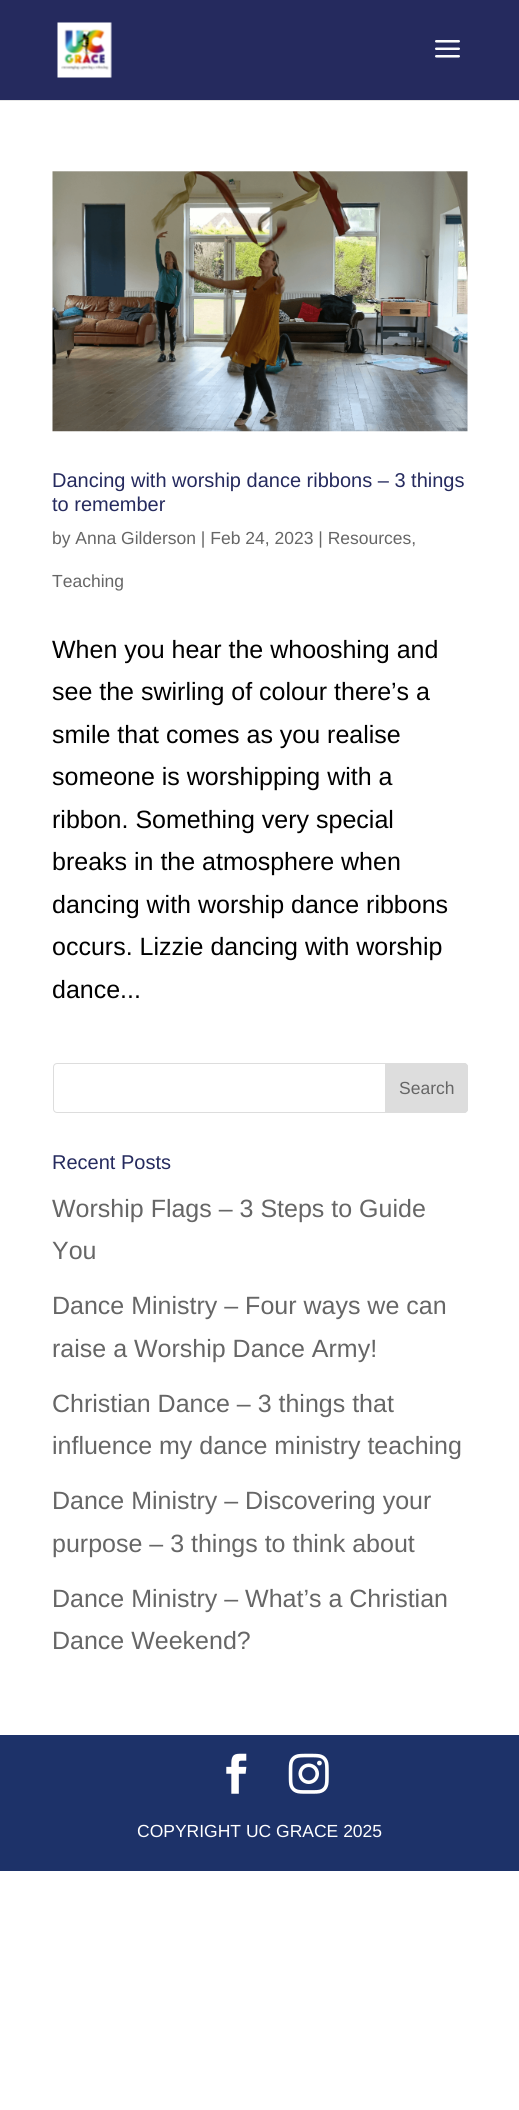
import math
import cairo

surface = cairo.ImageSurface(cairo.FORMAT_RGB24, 519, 2110)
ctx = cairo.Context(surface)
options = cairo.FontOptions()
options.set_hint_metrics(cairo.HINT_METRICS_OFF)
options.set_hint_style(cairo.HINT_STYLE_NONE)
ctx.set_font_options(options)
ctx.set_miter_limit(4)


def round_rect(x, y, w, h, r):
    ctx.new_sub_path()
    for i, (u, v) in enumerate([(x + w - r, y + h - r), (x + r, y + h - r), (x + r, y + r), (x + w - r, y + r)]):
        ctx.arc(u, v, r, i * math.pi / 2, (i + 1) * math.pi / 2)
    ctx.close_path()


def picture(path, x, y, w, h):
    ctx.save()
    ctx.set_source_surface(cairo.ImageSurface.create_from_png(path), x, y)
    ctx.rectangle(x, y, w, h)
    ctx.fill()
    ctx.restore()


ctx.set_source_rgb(1, 1, 1)
ctx.paint()
ctx.set_source_rgb(0.902, 0.902, 0.902)
ctx.rectangle(0, 100, 519, 1)
ctx.fill()
ctx.set_source_rgb(0.145, 0.165, 0.369)
ctx.rectangle(0, 0, 519, 100)
ctx.fill()
picture("img1.png", 57, 22, 55, 56)
picture("img2.png", 435, 40, 25, 18)
picture("img3.png", 52, 171, 416, 261)
ctx.select_font_face("Liberation Sans")
ctx.set_font_size(20)
ctx.move_to(52, 487)
ctx.show_text("Dancing with worship dance ribbons – 3 things")
ctx.move_to(52, 511)
ctx.show_text("to remember")
ctx.set_font_size(17.5)
ctx.set_source_rgb(0.4, 0.4, 0.4)
ctx.move_to(52, 544)
ctx.show_text("by Anna Gilderson | Feb 24, 2023 | Resources,")
ctx.move_to(52, 587)
ctx.show_text("Teaching")
ctx.set_font_size(25)
ctx.set_source_rgb(0, 0, 0)
ctx.move_to(52, 658)
ctx.show_text("When you hear the whooshing and")
ctx.move_to(52, 700)
ctx.show_text("see the swirling of colour there’s a")
ctx.move_to(52, 743)
ctx.show_text("smile that comes as you realise")
ctx.move_to(52, 785)
ctx.show_text("someone is worshipping with a")
ctx.move_to(52, 828)
ctx.show_text("ribbon. Something very special")
ctx.move_to(52, 870)
ctx.show_text("breaks in the atmosphere when")
ctx.move_to(52, 913)
ctx.show_text("dancing with worship dance ribbons")
ctx.move_to(52, 955)
ctx.show_text("occurs. Lizzie dancing with worship")
ctx.move_to(52, 998)
ctx.show_text("dance...")
round_rect(53.5, 1063.5, 414, 49, 3.5)
ctx.set_source_rgb(0.867, 0.867, 0.867)
ctx.set_line_width(1)
ctx.stroke()
ctx.new_path()
ctx.move_to(385.5, 1063.5)
ctx.line_to(464, 1063.5)
ctx.curve_to(466, 1063.5, 467.5, 1065, 467.5, 1067)
ctx.line_to(467.5, 1109)
ctx.curve_to(467.5, 1111, 466, 1112.5, 464, 1112.5)
ctx.line_to(385.5, 1112.5)
ctx.close_path()
ctx.fill_preserve()
ctx.stroke()
ctx.set_font_size(17.5)
ctx.set_source_rgb(0.4, 0.4, 0.4)
ctx.move_to(399, 1094)
ctx.show_text("Search")
ctx.set_font_size(20)
ctx.set_source_rgb(0.145, 0.165, 0.369)
ctx.move_to(52, 1169)
ctx.show_text("Recent Posts")
ctx.set_font_size(25)
ctx.set_source_rgb(0.4, 0.4, 0.4)
ctx.move_to(52, 1217)
ctx.show_text("Worship Flags – 3 Steps to Guide")
ctx.move_to(52, 1259)
ctx.show_text("You")
ctx.move_to(52, 1314)
ctx.show_text("Dance Ministry – Four ways we can")
ctx.move_to(52, 1357)
ctx.show_text("raise a Worship Dance Army!")
ctx.move_to(52, 1412)
ctx.show_text("Christian Dance – 3 things that")
ctx.move_to(52, 1454)
ctx.show_text("influence my dance ministry teaching")
ctx.move_to(52, 1509)
ctx.show_text("Dance Ministry – Discovering your")
ctx.move_to(52, 1552)
ctx.show_text("purpose – 3 things to think about")
ctx.move_to(52, 1607)
ctx.show_text("Dance Ministry – What’s a Christian")
ctx.move_to(52, 1649)
ctx.show_text("Dance Weekend?")
ctx.set_source_rgb(0.114, 0.196, 0.412)
ctx.rectangle(0, 1735, 519, 136)
ctx.fill()
picture("img4.png", 226, 1753, 21, 41)
picture("img5.png", 288, 1753, 41, 41)
ctx.set_font_size(17.5)
ctx.set_source_rgb(1, 1, 1)
ctx.move_to(137, 1837)
ctx.show_text("COPYRIGHT UC GRACE 2025")
surface.write_to_png("page.png")
